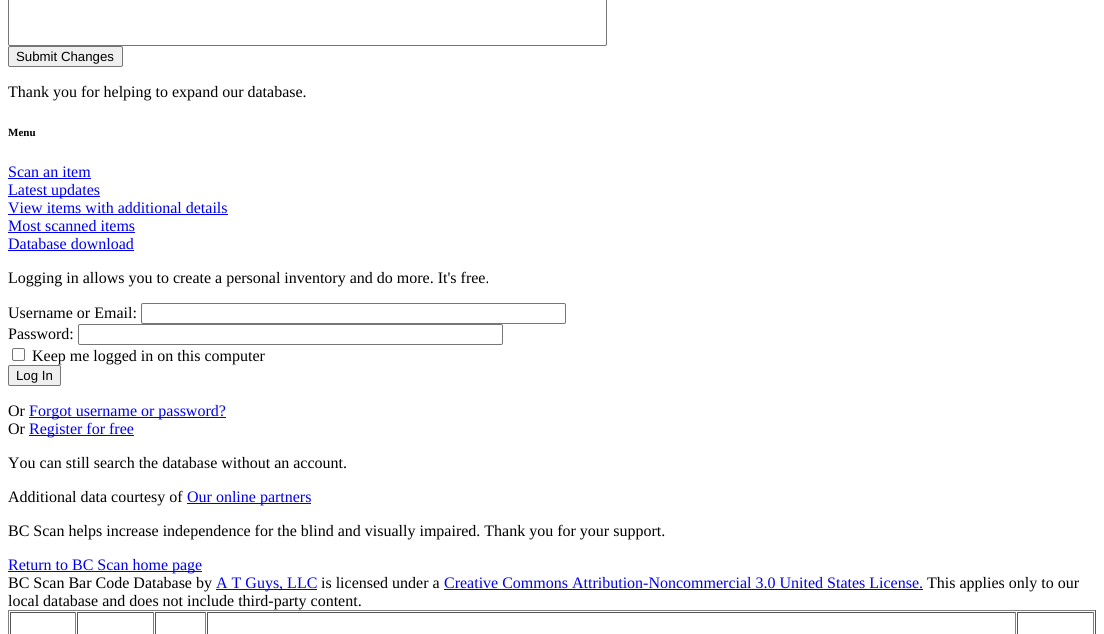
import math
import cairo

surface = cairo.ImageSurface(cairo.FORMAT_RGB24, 1104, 634)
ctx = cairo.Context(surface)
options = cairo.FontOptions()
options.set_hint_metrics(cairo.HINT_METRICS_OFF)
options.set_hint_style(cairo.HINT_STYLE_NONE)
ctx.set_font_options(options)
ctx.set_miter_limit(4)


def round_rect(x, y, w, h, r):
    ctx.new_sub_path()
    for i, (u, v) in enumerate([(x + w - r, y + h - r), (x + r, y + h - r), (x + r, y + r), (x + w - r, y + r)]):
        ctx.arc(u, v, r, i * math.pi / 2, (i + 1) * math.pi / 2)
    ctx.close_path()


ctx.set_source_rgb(1, 1, 1)
ctx.paint()
round_rect(8.5, -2.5, 598, 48, 1.5)
ctx.set_source_rgb(0.463, 0.463, 0.463)
ctx.set_line_width(1)
ctx.stroke()
ctx.set_source_rgb(0.937, 0.937, 0.937)
round_rect(8.5, 46.5, 114, 20, 1.5)
ctx.fill_preserve()
ctx.set_source_rgb(0.463, 0.463, 0.463)
ctx.stroke()
ctx.select_font_face("Liberation Sans")
ctx.set_font_size(13.25)
ctx.set_source_rgb(0, 0, 0)
ctx.move_to(16, 61)
ctx.show_text("Submit Changes")
ctx.select_font_face("Liberation Serif")
ctx.set_font_size(16)
ctx.move_to(8, 97)
ctx.show_text("Thank you for helping to expand our database.")
ctx.select_font_face("Liberation Serif", cairo.FONT_SLANT_NORMAL, cairo.FONT_WEIGHT_BOLD)
ctx.set_font_size(11)
ctx.move_to(8, 136)
ctx.show_text("Menu")
ctx.select_font_face("Liberation Serif")
ctx.set_font_size(16)
ctx.set_source_rgb(0, 0, 0.933)
ctx.move_to(8, 177)
ctx.show_text("Scan an item")
ctx.rectangle(8, 178, 83, 1)
ctx.fill()
ctx.rectangle(8, 196, 92, 1)
ctx.fill()
ctx.move_to(8, 195)
ctx.show_text("Latest updates")
ctx.move_to(8, 213)
ctx.show_text("View items with additional details")
ctx.rectangle(8, 214, 220, 1)
ctx.fill()
ctx.move_to(8, 231)
ctx.show_text("Most scanned items")
ctx.rectangle(8, 232, 127, 1)
ctx.fill()
ctx.move_to(8, 249)
ctx.show_text("Database download")
ctx.rectangle(8, 250, 126, 1)
ctx.fill()
ctx.set_source_rgb(0, 0, 0)
ctx.move_to(8, 283)
ctx.show_text("Logging in allows you to create a personal inventory and do more. It's free.")
ctx.move_to(8, 318)
ctx.show_text("Username or Email:")
round_rect(141.5, 303.5, 424, 20, 1.5)
ctx.set_source_rgb(0.463, 0.463, 0.463)
ctx.stroke()
ctx.set_source_rgb(0, 0, 0)
ctx.move_to(8, 339)
ctx.show_text("Password:")
round_rect(78.5, 324.5, 424, 20, 1.5)
ctx.set_source_rgb(0.463, 0.463, 0.463)
ctx.stroke()
round_rect(12.5, 348.5, 12, 12, 1.5)
ctx.stroke()
ctx.set_source_rgb(0, 0, 0)
ctx.move_to(32, 361)
ctx.show_text("Keep me logged in on this computer")
ctx.set_source_rgb(0.937, 0.937, 0.937)
round_rect(8.5, 365.5, 52, 20, 1.5)
ctx.fill_preserve()
ctx.set_source_rgb(0.463, 0.463, 0.463)
ctx.stroke()
ctx.select_font_face("Liberation Sans")
ctx.set_font_size(13.25)
ctx.set_source_rgb(0, 0, 0)
ctx.move_to(16, 380)
ctx.show_text("Log In")
ctx.select_font_face("Liberation Serif")
ctx.set_font_size(16)
ctx.move_to(8, 416)
ctx.show_text("Or")
ctx.set_source_rgb(0, 0, 0.933)
ctx.rectangle(29, 417, 197, 1)
ctx.fill()
ctx.move_to(29, 416)
ctx.show_text("Forgot username or password?")
ctx.set_source_rgb(0, 0, 0)
ctx.move_to(8, 434)
ctx.show_text("Or")
ctx.set_source_rgb(0, 0, 0.933)
ctx.rectangle(29, 435, 105, 1)
ctx.fill()
ctx.move_to(29, 434)
ctx.show_text("Register for free")
ctx.set_source_rgb(0, 0, 0)
ctx.move_to(8, 468)
ctx.show_text("You can still search the database without an account.")
ctx.move_to(8, 502)
ctx.show_text("Additional data courtesy of")
ctx.set_source_rgb(0, 0, 0.933)
ctx.rectangle(187, 503, 124, 1)
ctx.fill()
ctx.move_to(187, 502)
ctx.show_text("Our online partners")
ctx.set_source_rgb(0, 0, 0)
ctx.move_to(8, 536)
ctx.show_text("BC Scan helps increase independence for the blind and visually impaired. Thank you for your support.")
ctx.set_source_rgb(0, 0, 0.933)
ctx.rectangle(8, 571, 194, 1)
ctx.fill()
ctx.move_to(8, 570)
ctx.show_text("Return to BC Scan home page")
ctx.set_source_rgb(0, 0, 0)
ctx.move_to(8, 588)
ctx.show_text("BC Scan Bar Code Database by")
ctx.set_source_rgb(0, 0, 0.933)
ctx.rectangle(216, 589, 101, 1)
ctx.fill()
ctx.move_to(216, 588)
ctx.show_text("A T Guys, LLC")
ctx.set_source_rgb(0, 0, 0)
ctx.move_to(321, 588)
ctx.show_text("is licensed under a")
ctx.set_source_rgb(0, 0, 0.933)
ctx.move_to(444, 588)
ctx.show_text("Creative Commons Attribution-Noncommercial 3.0 United States License.")
ctx.rectangle(444, 589, 479, 1)
ctx.fill()
ctx.set_source_rgb(0, 0, 0)
ctx.move_to(927, 588)
ctx.show_text("This applies only to our")
ctx.move_to(8, 606)
ctx.show_text("local database and does not include third-party content.")
ctx.set_source_rgb(0.502, 0.502, 0.502)
ctx.rectangle(8, 610, 1088, 1)
ctx.fill()
ctx.set_source_rgb(0.333, 0.333, 0.333)
ctx.rectangle(1095, 610, 1, 24)
ctx.fill()
ctx.set_source_rgb(0.502, 0.502, 0.502)
ctx.rectangle(8, 610, 1, 24)
ctx.fill()
ctx.set_source_rgb(0.333, 0.333, 0.333)
ctx.rectangle(10, 612, 66, 1)
ctx.fill()
ctx.set_source_rgb(0.502, 0.502, 0.502)
ctx.rectangle(75, 612, 1, 22)
ctx.fill()
ctx.set_source_rgb(0.333, 0.333, 0.333)
ctx.rectangle(10, 612, 1, 22)
ctx.fill()
ctx.rectangle(77, 612, 77, 1)
ctx.fill()
ctx.set_source_rgb(0.502, 0.502, 0.502)
ctx.rectangle(153, 612, 1, 22)
ctx.fill()
ctx.set_source_rgb(0.333, 0.333, 0.333)
ctx.rectangle(77, 612, 1, 22)
ctx.fill()
ctx.rectangle(155, 612, 51, 1)
ctx.fill()
ctx.set_source_rgb(0.502, 0.502, 0.502)
ctx.rectangle(205, 612, 1, 22)
ctx.fill()
ctx.set_source_rgb(0.333, 0.333, 0.333)
ctx.rectangle(155, 612, 1, 22)
ctx.fill()
ctx.rectangle(207, 612, 809, 1)
ctx.fill()
ctx.set_source_rgb(0.502, 0.502, 0.502)
ctx.rectangle(1015, 612, 1, 22)
ctx.fill()
ctx.set_source_rgb(0.333, 0.333, 0.333)
ctx.rectangle(207, 612, 1, 22)
ctx.fill()
ctx.rectangle(1017, 612, 77, 1)
ctx.fill()
ctx.set_source_rgb(0.502, 0.502, 0.502)
ctx.rectangle(1093, 612, 1, 22)
ctx.fill()
ctx.set_source_rgb(0.333, 0.333, 0.333)
ctx.rectangle(1017, 612, 1, 22)
ctx.fill()
surface.write_to_png("page.png")
